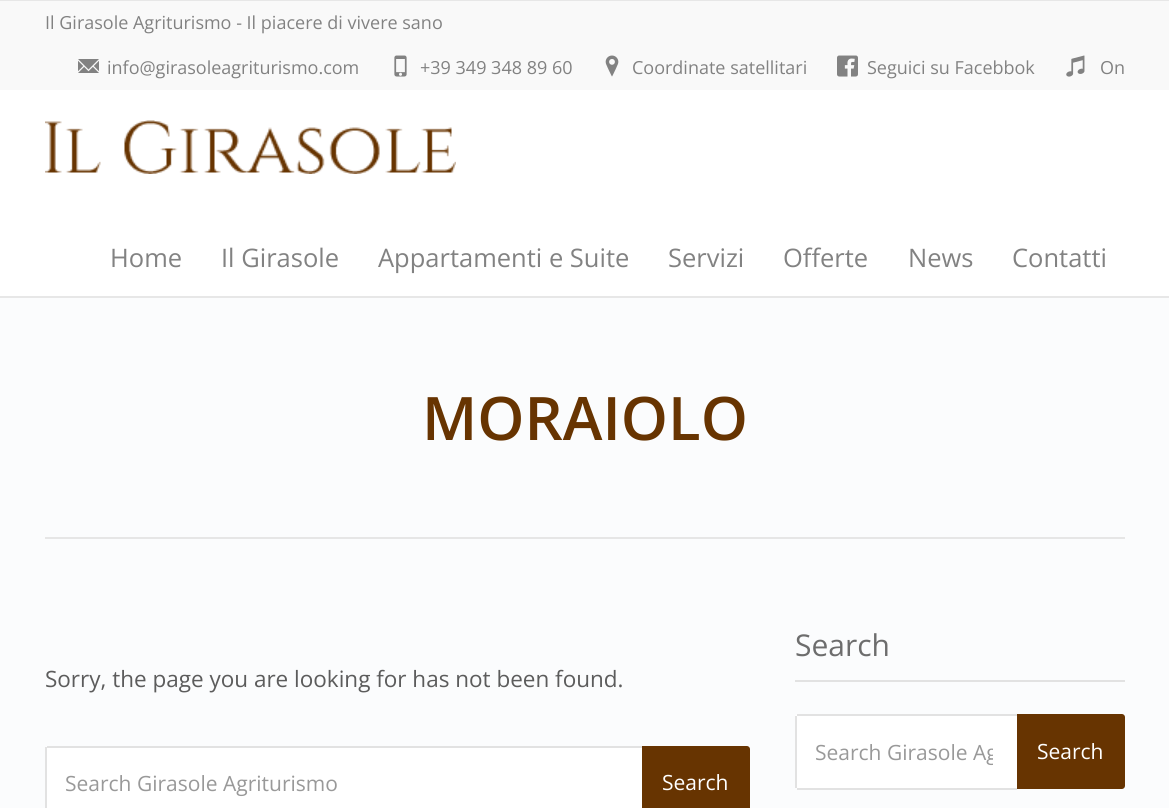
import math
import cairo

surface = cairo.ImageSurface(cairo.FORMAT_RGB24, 1169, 808)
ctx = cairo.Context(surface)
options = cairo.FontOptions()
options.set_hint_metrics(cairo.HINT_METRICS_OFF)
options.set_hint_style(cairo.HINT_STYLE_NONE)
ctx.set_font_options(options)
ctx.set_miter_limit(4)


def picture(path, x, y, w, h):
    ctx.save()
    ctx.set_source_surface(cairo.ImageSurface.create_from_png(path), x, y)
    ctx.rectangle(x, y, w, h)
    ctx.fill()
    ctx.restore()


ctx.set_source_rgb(0.984, 0.988, 0.992)
ctx.paint()
ctx.set_source_rgb(0.906, 0.906, 0.906)
ctx.rectangle(0, 0, 1169, 1)
ctx.fill()
ctx.set_source_rgb(1, 1, 1)
ctx.rectangle(0, 90, 1169, 206)
ctx.fill()
ctx.set_source_rgb(0.906, 0.906, 0.906)
ctx.rectangle(0, 296, 1169, 2)
ctx.fill()
ctx.set_source_rgb(0.973, 0.973, 0.973)
ctx.rectangle(0, 1, 1169, 89)
ctx.fill()
ctx.select_font_face("Open Sans")
ctx.set_font_size(18)
ctx.set_source_rgb(0.51, 0.51, 0.51)
ctx.move_to(45, 29)
ctx.show_text("Il Girasole Agriturismo - Il piacere di vivere sano")
picture("img1.png", 78, 59, 21, 14)
ctx.move_to(107, 74)
ctx.show_text("info@girasoleagriturismo.com")
picture("img2.png", 394, 55, 13, 22)
ctx.move_to(420, 74)
ctx.show_text("+39 349 348 89 60")
picture("img3.png", 605, 55, 14, 22)
ctx.move_to(632, 74)
ctx.show_text("Coordinate satellitari")
picture("img4.png", 837, 55, 21, 22)
ctx.move_to(867, 74)
ctx.show_text("Seguici su Facebbok")
picture("img5.png", 1066, 55, 19, 22)
ctx.move_to(1100, 74)
ctx.show_text("On")
picture("img6.png", 45, 120, 411, 54)
ctx.set_font_size(25.5)
ctx.move_to(110, 267)
ctx.show_text("Home")
ctx.move_to(221, 267)
ctx.show_text("Il Girasole")
ctx.move_to(378, 267)
ctx.show_text("Appartamenti e Suite")
ctx.move_to(668, 267)
ctx.show_text("Servizi")
ctx.move_to(783, 267)
ctx.show_text("Offerte")
ctx.move_to(908, 267)
ctx.show_text("News")
ctx.move_to(1012, 267)
ctx.show_text("Contatti")
ctx.set_source_rgb(0.902, 0.902, 0.902)
ctx.rectangle(45, 537, 1080, 2)
ctx.fill()
ctx.select_font_face("Open Sans SemiBold")
ctx.set_font_size(60)
ctx.set_source_rgb(0.404, 0.204, 0.004)
ctx.move_to(422, 440)
ctx.show_text("MORAIOLO")
ctx.select_font_face("Open Sans")
ctx.set_font_size(22.5)
ctx.set_source_rgb(0.361, 0.361, 0.361)
ctx.move_to(45, 687)
ctx.show_text("Sorry, the page you are looking for has not been found.")
ctx.set_source_rgb(1, 1, 1)
ctx.new_path()
ctx.move_to(48, 746)
ctx.line_to(642, 746)
ctx.line_to(642, 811)
ctx.line_to(48, 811)
ctx.curve_to(46.5, 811, 45, 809.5, 45, 808)
ctx.line_to(45, 749)
ctx.curve_to(45, 747.5, 46.5, 746, 48, 746)
ctx.close_path()
ctx.fill()
ctx.set_source_rgb(0.886, 0.886, 0.886)
ctx.rectangle(47, 746, 595, 2)
ctx.fill()
ctx.rectangle(45, 747, 2, 61)
ctx.fill()
ctx.set_font_size(21)
ctx.set_source_rgb(0.6, 0.6, 0.6)
ctx.move_to(65, 791)
ctx.show_text("Search Girasole Agriturismo")
ctx.set_source_rgb(0.404, 0.204, 0.004)
ctx.new_path()
ctx.move_to(642, 746)
ctx.line_to(747, 746)
ctx.curve_to(748.5, 746, 750, 747.5, 750, 749)
ctx.line_to(750, 808)
ctx.curve_to(750, 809.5, 748.5, 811, 747, 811)
ctx.line_to(642, 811)
ctx.close_path()
ctx.fill()
ctx.set_source_rgb(1, 1, 1)
ctx.move_to(662, 790)
ctx.show_text("Search")
ctx.set_source_rgb(0.886, 0.886, 0.886)
ctx.rectangle(795, 680, 330, 2)
ctx.fill()
ctx.set_font_size(30)
ctx.set_source_rgb(0.427, 0.427, 0.427)
ctx.move_to(795, 656)
ctx.show_text("Search")
ctx.set_source_rgb(1, 1, 1)
ctx.new_path()
ctx.move_to(798, 714)
ctx.line_to(1017, 714)
ctx.line_to(1017, 789)
ctx.line_to(798, 789)
ctx.curve_to(796.5, 789, 795, 787.5, 795, 786)
ctx.line_to(795, 717)
ctx.curve_to(795, 715.5, 796.5, 714, 798, 714)
ctx.close_path()
ctx.fill()
ctx.set_source_rgb(0.886, 0.886, 0.886)
ctx.rectangle(797, 714, 220, 2)
ctx.fill()
ctx.rectangle(797, 788, 220, 2)
ctx.fill()
ctx.rectangle(795, 716, 2, 72)
ctx.fill()
ctx.save()
ctx.rectangle(815, 738, 178, 29)
ctx.clip()
ctx.set_font_size(21)
ctx.set_source_rgb(0.6, 0.6, 0.6)
ctx.move_to(815, 760)
ctx.show_text("Search Girasole Ag")
ctx.restore()
ctx.set_source_rgb(0.404, 0.204, 0.004)
ctx.new_path()
ctx.move_to(1017, 714)
ctx.line_to(1122, 714)
ctx.curve_to(1123.5, 714, 1125, 715.5, 1125, 717)
ctx.line_to(1125, 786)
ctx.curve_to(1125, 787.5, 1123.5, 789, 1122, 789)
ctx.line_to(1017, 789)
ctx.close_path()
ctx.fill()
ctx.set_font_size(21)
ctx.set_source_rgb(1, 1, 1)
ctx.move_to(1037, 759)
ctx.show_text("Search")
surface.write_to_png("page.png")
